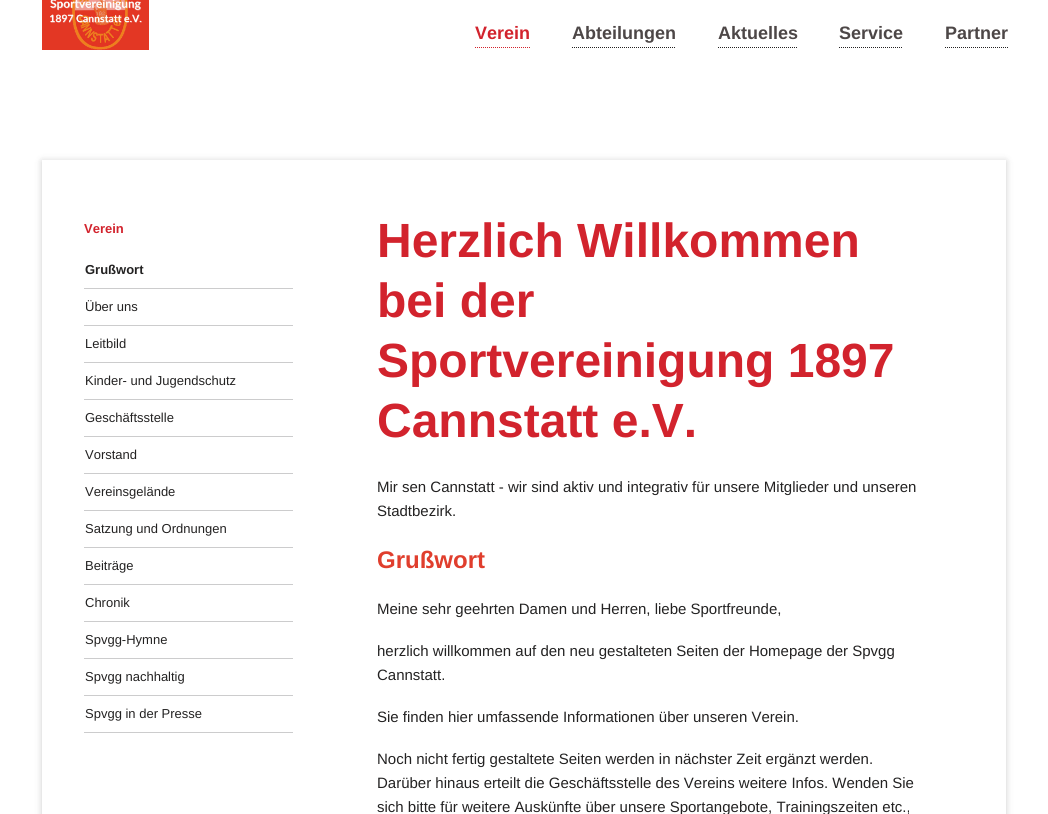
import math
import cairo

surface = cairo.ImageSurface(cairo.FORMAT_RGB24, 1048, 814)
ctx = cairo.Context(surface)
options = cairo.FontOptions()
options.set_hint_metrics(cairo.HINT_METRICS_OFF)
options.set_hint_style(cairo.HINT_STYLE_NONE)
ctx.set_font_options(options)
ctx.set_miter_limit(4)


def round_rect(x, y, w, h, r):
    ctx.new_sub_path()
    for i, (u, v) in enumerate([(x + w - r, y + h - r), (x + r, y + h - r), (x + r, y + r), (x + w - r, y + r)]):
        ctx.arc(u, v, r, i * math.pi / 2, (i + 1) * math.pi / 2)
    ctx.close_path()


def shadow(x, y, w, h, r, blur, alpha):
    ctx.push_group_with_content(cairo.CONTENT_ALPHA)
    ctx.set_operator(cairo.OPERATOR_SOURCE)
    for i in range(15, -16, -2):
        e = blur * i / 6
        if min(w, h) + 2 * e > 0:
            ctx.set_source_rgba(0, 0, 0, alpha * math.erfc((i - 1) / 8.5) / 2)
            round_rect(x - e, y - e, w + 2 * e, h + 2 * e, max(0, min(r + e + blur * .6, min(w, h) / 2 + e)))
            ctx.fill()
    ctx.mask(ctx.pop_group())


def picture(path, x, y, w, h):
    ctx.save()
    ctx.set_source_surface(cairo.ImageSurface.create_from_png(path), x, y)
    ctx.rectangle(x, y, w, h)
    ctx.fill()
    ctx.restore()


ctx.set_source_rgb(1, 1, 1)
ctx.paint()
picture("img1.png", 42, 0, 107, 50)
ctx.new_path()
ctx.move_to(475, 47.5)
ctx.line_to(530, 47.5)
ctx.set_source_rgb(0.824, 0.137, 0.176)
ctx.set_line_width(1)
ctx.set_dash([1, 1])
ctx.stroke()
ctx.select_font_face("Liberation Sans", cairo.FONT_SLANT_NORMAL, cairo.FONT_WEIGHT_BOLD)
ctx.set_font_size(18)
ctx.move_to(475, 39)
ctx.show_text("Verein")
ctx.new_path()
ctx.move_to(572, 47.5)
ctx.line_to(676, 47.5)
ctx.set_source_rgb(0.137, 0.133, 0.133)
ctx.stroke()
ctx.set_source_rgb(0.302, 0.278, 0.278)
ctx.move_to(572, 39)
ctx.show_text("Abteilungen")
ctx.new_path()
ctx.move_to(718, 47.5)
ctx.line_to(798, 47.5)
ctx.set_source_rgb(0.137, 0.133, 0.133)
ctx.stroke()
ctx.set_source_rgb(0.302, 0.278, 0.278)
ctx.move_to(718, 39)
ctx.show_text("Aktuelles")
ctx.new_path()
ctx.move_to(839, 47.5)
ctx.line_to(903, 47.5)
ctx.set_source_rgb(0.137, 0.133, 0.133)
ctx.stroke()
ctx.set_source_rgb(0.302, 0.278, 0.278)
ctx.move_to(839, 39)
ctx.show_text("Service")
ctx.new_path()
ctx.move_to(945, 47.5)
ctx.line_to(1008, 47.5)
ctx.set_source_rgb(0.137, 0.133, 0.133)
ctx.stroke()
ctx.set_source_rgb(0.302, 0.278, 0.278)
ctx.move_to(945, 39)
ctx.show_text("Partner")
ctx.save()
ctx.set_fill_rule(cairo.FILL_RULE_EVEN_ODD)
ctx.new_path()
ctx.move_to(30, 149)
ctx.line_to(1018, 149)
ctx.line_to(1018, 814)
ctx.line_to(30, 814)
ctx.close_path()
ctx.move_to(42, 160)
ctx.line_to(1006, 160)
ctx.line_to(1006, 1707)
ctx.line_to(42, 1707)
ctx.close_path()
ctx.clip()
ctx.set_source_rgb(0, 0, 0)
shadow(42, 161, 964, 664, 0, 3.5, 0.2)
ctx.restore()
ctx.set_font_size(13)
ctx.set_source_rgb(0.824, 0.137, 0.176)
ctx.move_to(84, 233)
ctx.show_text("Verein")
ctx.set_source_rgb(0.8, 0.8, 0.804)
ctx.rectangle(84, 288, 209, 1)
ctx.fill()
ctx.set_source_rgb(0.137, 0.133, 0.133)
ctx.move_to(85, 274)
ctx.show_text("Grußwort")
ctx.set_source_rgb(0.8, 0.8, 0.804)
ctx.rectangle(84, 325, 209, 1)
ctx.fill()
ctx.select_font_face("Liberation Sans")
ctx.set_source_rgb(0.137, 0.133, 0.133)
ctx.move_to(85, 311)
ctx.show_text("Über uns")
ctx.set_source_rgb(0.8, 0.8, 0.804)
ctx.rectangle(84, 362, 209, 1)
ctx.fill()
ctx.set_source_rgb(0.137, 0.133, 0.133)
ctx.move_to(85, 348)
ctx.show_text("Leitbild")
ctx.set_source_rgb(0.8, 0.8, 0.804)
ctx.rectangle(84, 399, 209, 1)
ctx.fill()
ctx.set_source_rgb(0.137, 0.133, 0.133)
ctx.move_to(85, 385)
ctx.show_text("Kinder- und Jugendschutz")
ctx.set_source_rgb(0.8, 0.8, 0.804)
ctx.rectangle(84, 436, 209, 1)
ctx.fill()
ctx.set_source_rgb(0.137, 0.133, 0.133)
ctx.move_to(85, 422)
ctx.show_text("Geschäftsstelle")
ctx.set_source_rgb(0.8, 0.8, 0.804)
ctx.rectangle(84, 473, 209, 1)
ctx.fill()
ctx.set_source_rgb(0.137, 0.133, 0.133)
ctx.move_to(85, 459)
ctx.show_text("Vorstand")
ctx.set_source_rgb(0.8, 0.8, 0.804)
ctx.rectangle(84, 510, 209, 1)
ctx.fill()
ctx.set_source_rgb(0.137, 0.133, 0.133)
ctx.move_to(85, 496)
ctx.show_text("Vereinsgelände")
ctx.set_source_rgb(0.8, 0.8, 0.804)
ctx.rectangle(84, 547, 209, 1)
ctx.fill()
ctx.set_source_rgb(0.137, 0.133, 0.133)
ctx.move_to(85, 533)
ctx.show_text("Satzung und Ordnungen")
ctx.set_source_rgb(0.8, 0.8, 0.804)
ctx.rectangle(84, 584, 209, 1)
ctx.fill()
ctx.set_source_rgb(0.137, 0.133, 0.133)
ctx.move_to(85, 570)
ctx.show_text("Beiträge")
ctx.set_source_rgb(0.8, 0.8, 0.804)
ctx.rectangle(84, 621, 209, 1)
ctx.fill()
ctx.set_source_rgb(0.137, 0.133, 0.133)
ctx.move_to(85, 607)
ctx.show_text("Chronik")
ctx.set_source_rgb(0.8, 0.8, 0.804)
ctx.rectangle(84, 658, 209, 1)
ctx.fill()
ctx.set_source_rgb(0.137, 0.133, 0.133)
ctx.move_to(85, 644)
ctx.show_text("Spvgg-Hymne")
ctx.set_source_rgb(0.8, 0.8, 0.804)
ctx.rectangle(84, 695, 209, 1)
ctx.fill()
ctx.set_source_rgb(0.137, 0.133, 0.133)
ctx.move_to(85, 681)
ctx.show_text("Spvgg nachhaltig")
ctx.set_source_rgb(0.8, 0.8, 0.804)
ctx.rectangle(84, 732, 209, 1)
ctx.fill()
ctx.set_source_rgb(0.137, 0.133, 0.133)
ctx.move_to(85, 718)
ctx.show_text("Spvgg in der Presse")
ctx.select_font_face("Liberation Sans", cairo.FONT_SLANT_NORMAL, cairo.FONT_WEIGHT_BOLD)
ctx.set_font_size(48)
ctx.set_source_rgb(0.824, 0.137, 0.176)
ctx.move_to(377, 257)
ctx.show_text("Herzlich Willkommen")
ctx.move_to(377, 317)
ctx.show_text("bei der")
ctx.move_to(377, 377)
ctx.show_text("Sportvereinigung 1897")
ctx.move_to(377, 437)
ctx.show_text("Cannstatt e.V.")
ctx.select_font_face("Liberation Sans")
ctx.set_font_size(15)
ctx.set_source_rgb(0.137, 0.133, 0.133)
ctx.move_to(377, 492)
ctx.show_text("Mir sen Cannstatt - wir sind aktiv und integrativ für unsere Mitglieder und unseren")
ctx.move_to(377, 516)
ctx.show_text("Stadtbezirk.")
ctx.select_font_face("Liberation Sans", cairo.FONT_SLANT_NORMAL, cairo.FONT_WEIGHT_BOLD)
ctx.set_font_size(24)
ctx.set_source_rgb(0.878, 0.243, 0.176)
ctx.move_to(377, 568)
ctx.show_text("Grußwort")
ctx.select_font_face("Liberation Sans")
ctx.set_font_size(15)
ctx.set_source_rgb(0.137, 0.133, 0.133)
ctx.move_to(377, 614)
ctx.show_text("Meine sehr geehrten Damen und Herren, liebe Sportfreunde,")
ctx.move_to(377, 656)
ctx.show_text("herzlich willkommen auf den neu gestalteten Seiten der Homepage der Spvgg")
ctx.move_to(377, 680)
ctx.show_text("Cannstatt.")
ctx.move_to(377, 722)
ctx.show_text("Sie finden hier umfassende Informationen über unseren Verein.")
ctx.move_to(377, 764)
ctx.show_text("Noch nicht fertig gestaltete Seiten werden in nächster Zeit ergänzt werden.")
ctx.move_to(377, 788)
ctx.show_text("Darüber hinaus erteilt die Geschäftsstelle des Vereins weitere Infos. Wenden Sie")
ctx.move_to(377, 812)
ctx.show_text("sich bitte für weitere Auskünfte über unsere Sportangebote, Trainingszeiten etc.,")
surface.write_to_png("page.png")
